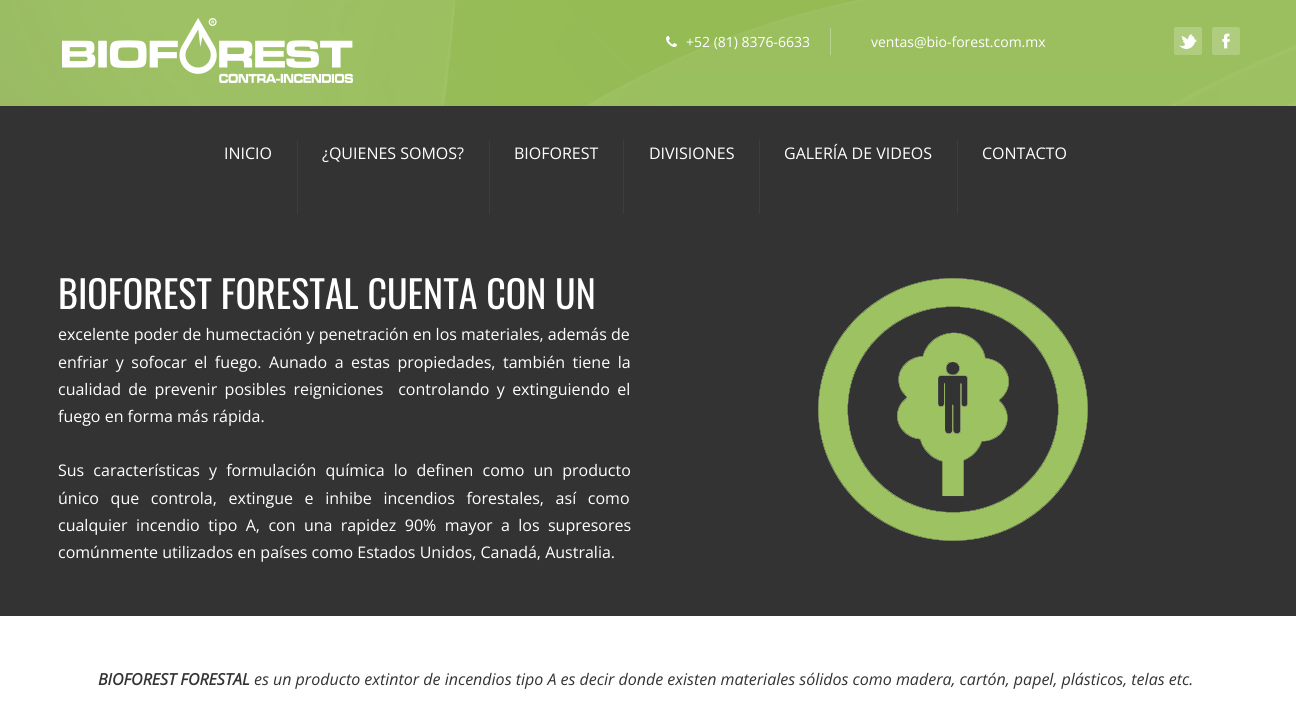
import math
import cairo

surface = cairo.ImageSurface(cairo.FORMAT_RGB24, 1296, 728)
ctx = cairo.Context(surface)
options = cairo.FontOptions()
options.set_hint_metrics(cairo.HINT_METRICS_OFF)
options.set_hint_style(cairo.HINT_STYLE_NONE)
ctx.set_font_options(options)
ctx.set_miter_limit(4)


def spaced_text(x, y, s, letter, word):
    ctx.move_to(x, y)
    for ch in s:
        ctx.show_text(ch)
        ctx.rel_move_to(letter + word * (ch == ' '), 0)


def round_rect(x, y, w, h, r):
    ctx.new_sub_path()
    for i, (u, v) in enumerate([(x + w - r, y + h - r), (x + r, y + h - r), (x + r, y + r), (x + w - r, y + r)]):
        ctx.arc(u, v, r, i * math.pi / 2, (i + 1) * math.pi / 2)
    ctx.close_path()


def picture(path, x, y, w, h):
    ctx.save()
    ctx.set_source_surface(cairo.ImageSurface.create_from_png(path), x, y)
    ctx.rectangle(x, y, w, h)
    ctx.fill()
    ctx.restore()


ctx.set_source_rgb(1, 1, 1)
ctx.paint()
ctx.set_source_rgb(0.58, 0.733, 0.329)
ctx.rectangle(0, 0, 1296, 106)
ctx.fill()
picture("img1.png", 0, 0, 1296, 106)
picture("img2.png", 62, 18, 291, 65)
ctx.set_source_rgb(0.725, 0.824, 0.561)
ctx.rectangle(830, 28, 1, 27)
ctx.fill()
picture("img3.png", 666, 36, 11, 11)
ctx.select_font_face("Open Sans")
ctx.set_font_size(14)
ctx.set_source_rgb(1, 1, 1)
ctx.move_to(686, 47)
ctx.show_text("+52 (81) 8376-6633")
ctx.move_to(871, 47)
ctx.show_text("ventas@bio-forest.com.mx")
ctx.set_source_rgb(0.686, 0.8, 0.498)
round_rect(1174, 27, 28, 28, 2)
ctx.fill()
round_rect(1212, 27, 28, 28, 2)
ctx.fill()
picture("img4.png", 1179, 34, 18, 15)
picture("img5.png", 1222, 33, 8, 16)
ctx.set_source_rgb(0.2, 0.2, 0.2)
ctx.rectangle(0, 106, 1296, 510)
ctx.fill()
ctx.set_source_rgb(0.239, 0.239, 0.239)
ctx.rectangle(297, 140, 1, 74)
ctx.fill()
ctx.set_font_size(16)
ctx.set_source_rgb(1, 1, 1)
ctx.move_to(224, 159)
ctx.show_text("INICIO")
ctx.set_source_rgb(0.239, 0.239, 0.239)
ctx.rectangle(489, 140, 1, 74)
ctx.fill()
ctx.set_source_rgb(1, 1, 1)
ctx.move_to(322, 159)
ctx.show_text("¿QUIENES SOMOS?")
ctx.set_source_rgb(0.239, 0.239, 0.239)
ctx.rectangle(623, 140, 1, 74)
ctx.fill()
ctx.set_source_rgb(1, 1, 1)
ctx.move_to(514, 159)
ctx.show_text("BIOFOREST")
ctx.set_source_rgb(0.239, 0.239, 0.239)
ctx.rectangle(759, 140, 1, 74)
ctx.fill()
ctx.set_source_rgb(1, 1, 1)
ctx.move_to(649, 159)
ctx.show_text("DIVISIONES")
ctx.set_source_rgb(0.239, 0.239, 0.239)
ctx.rectangle(957, 140, 1, 74)
ctx.fill()
ctx.set_source_rgb(1, 1, 1)
ctx.move_to(784, 159)
ctx.show_text("GALERÍA DE VIDEOS")
ctx.move_to(982, 159)
ctx.show_text("CONTACTO")
ctx.select_font_face("Oswald")
ctx.set_font_size(38)
ctx.move_to(58, 309)
ctx.show_text("BIOFOREST FORESTAL CUENTA CON UN")
ctx.select_font_face("Open Sans")
ctx.set_font_size(16)
ctx.move_to(58, 340)
ctx.show_text("excelente poder de humectación y penetración en los materiales, además de")
spaced_text(58, 368, "enfriar y sofocar el fuego. Aunado a estas propiedades, también tiene la", 0, 3.4)
spaced_text(58, 395, "cualidad de prevenir posibles reigniciones  controlando y extinguiendo el", 0, 3.25)
ctx.move_to(58, 422)
ctx.show_text("fuego en forma más rápida.")
spaced_text(58, 476, "Sus características y formulación química lo definen como un producto", 0, 5)
spaced_text(58, 504, "único que controla, extingue e inhibe incendios forestales, así como", 0, 7.5)
spaced_text(58, 531, "cualquier incendio tipo A, con una rapidez 90% mayor a los supresores", 0, 4.25)
ctx.move_to(58, 558)
ctx.show_text("comúnmente utilizados en países como Estados Unidos, Canadá, Australia.")
picture("img6.png", 818, 278, 270, 263)
ctx.select_font_face("Open Sans", cairo.FONT_SLANT_ITALIC, cairo.FONT_WEIGHT_BOLD)
ctx.set_source_rgb(0.2, 0.2, 0.2)
ctx.move_to(98, 685)
ctx.show_text("BIOFOREST FORESTAL")
ctx.select_font_face("Open Sans", cairo.FONT_SLANT_ITALIC)
ctx.move_to(254, 685)
ctx.show_text("es un producto extintor de incendios tipo A es decir donde existen materiales sólidos como madera, cartón, papel, plásticos, telas etc.")
surface.write_to_png("page.png")
